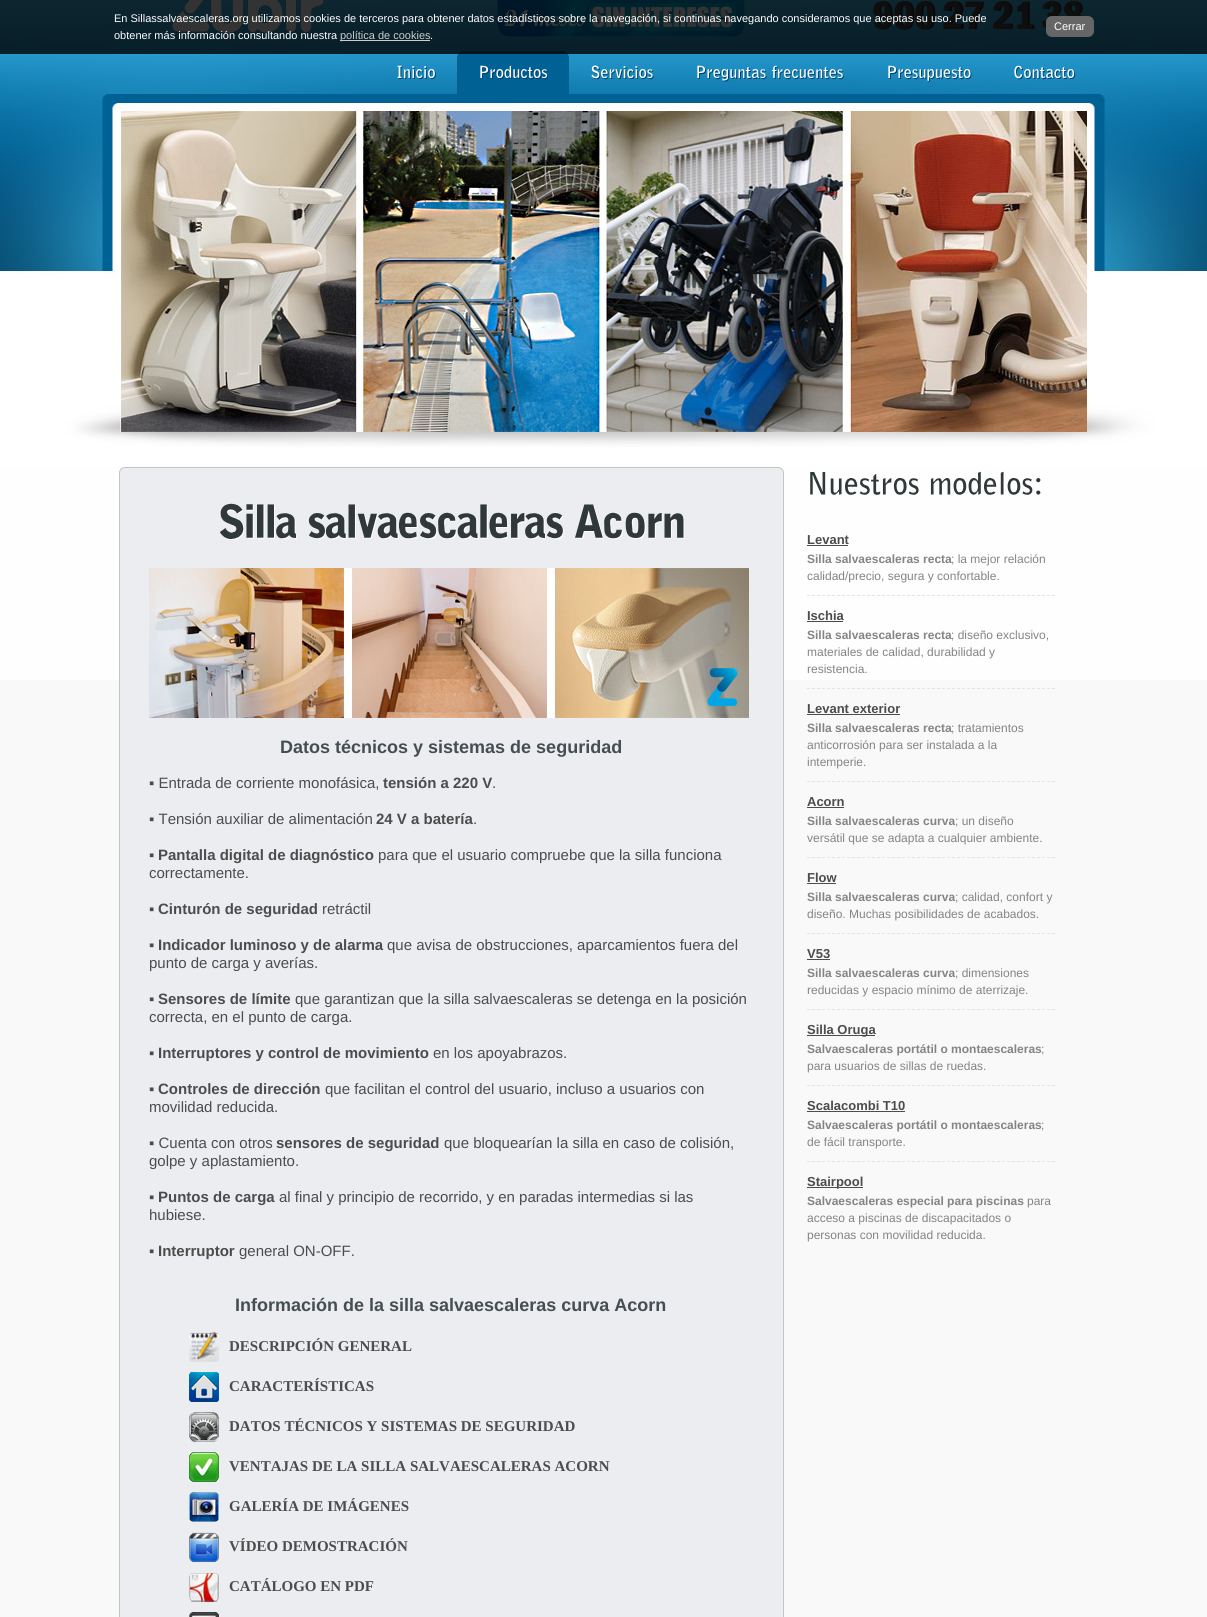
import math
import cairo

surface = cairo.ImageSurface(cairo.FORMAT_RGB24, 1207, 1617)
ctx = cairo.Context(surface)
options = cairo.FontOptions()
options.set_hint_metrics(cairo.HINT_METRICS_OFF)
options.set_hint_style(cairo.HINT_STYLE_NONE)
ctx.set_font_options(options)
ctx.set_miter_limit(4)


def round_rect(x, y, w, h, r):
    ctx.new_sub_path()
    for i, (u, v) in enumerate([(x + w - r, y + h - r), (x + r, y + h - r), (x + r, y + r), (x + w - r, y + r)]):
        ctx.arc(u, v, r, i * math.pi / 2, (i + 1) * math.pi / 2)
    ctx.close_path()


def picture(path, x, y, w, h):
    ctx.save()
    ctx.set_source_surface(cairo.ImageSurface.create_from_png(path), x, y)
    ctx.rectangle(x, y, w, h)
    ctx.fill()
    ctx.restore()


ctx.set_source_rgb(0.973, 0.973, 0.976)
ctx.paint()
ctx.set_source_rgb(1, 1, 1)
ctx.rectangle(0, 447, 1207, 20)
ctx.fill()
picture("img1.png", 0, 0, 1207, 447)
picture("img2.png", 171, 0, 153, 34)
picture("img3.png", 497, 0, 248, 37)
picture("img4.png", 873, 1, 210, 29)
picture("img5.png", 397, 65, 39, 14)
ctx.set_source_rgb(0, 0.38, 0.584)
round_rect(457, 51, 112, 49, 7)
ctx.fill()
picture("img6.png", 480, 65, 68, 15)
picture("img7.png", 591, 65, 63, 15)
picture("img8.png", 697, 65, 70, 17)
picture("img9.png", 772, 65, 72, 15)
picture("img10.png", 888, 65, 84, 17)
picture("img11.png", 1014, 65, 62, 15)
picture("img12.png", 121, 111, 966, 321)
ctx.set_source_rgba(0, 0, 0, 0.8)
ctx.rectangle(0, 0, 1207, 54)
ctx.fill()
ctx.select_font_face("Liberation Sans")
ctx.set_font_size(11)
ctx.set_source_rgb(1, 1, 1)
ctx.move_to(114, 22)
ctx.show_text("En Sillassalvaescaleras.org utilizamos cookies de terceros para obtener datos estadísticos sobre la navegación, si continuas navegando consideramos que aceptas su uso. Puede")
ctx.set_source_rgb(0.4, 0.4, 0.4)
round_rect(1046, 16, 48, 21, 6)
ctx.fill()
ctx.set_source_rgb(1, 1, 1)
ctx.move_to(1054, 30)
ctx.show_text("Cerrar")
ctx.move_to(114, 39)
ctx.show_text("obtener más información consultando nuestra")
ctx.set_source_rgb(0.8, 0.8, 0.8)
ctx.rectangle(340, 40, 90, 1)
ctx.fill()
ctx.move_to(340, 39)
ctx.show_text("política de cookies")
ctx.set_source_rgb(1, 1, 1)
ctx.move_to(430, 39)
ctx.show_text(".")
ctx.set_source_rgb(0.996, 0.996, 0.996)
ctx.rectangle(0, 467, 1207, 213)
ctx.fill()
ctx.set_source_rgb(0.918, 0.929, 0.941)
round_rect(119.5, 467.5, 664, 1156, 5.5)
ctx.fill_preserve()
ctx.set_source_rgb(0.769, 0.769, 0.765)
ctx.set_line_width(1)
ctx.stroke()
picture("img13.png", 220, 503, 77, 37)
picture("img14.png", 308, 504, 256, 36)
picture("img15.png", 575, 504, 110, 36)
picture("img16.png", 149, 568, 600, 150)
ctx.select_font_face("Liberation Sans", cairo.FONT_SLANT_NORMAL, cairo.FONT_WEIGHT_BOLD)
ctx.set_font_size(18)
ctx.set_source_rgb(0.271, 0.31, 0.318)
ctx.move_to(280, 753)
ctx.show_text("Datos técnicos y sistemas de seguridad")
ctx.select_font_face("Liberation Sans")
ctx.set_font_size(15)
ctx.set_source_rgb(0.298, 0.298, 0.298)
ctx.move_to(149, 788)
ctx.show_text("▪ Entrada de corriente monofásica,")
ctx.select_font_face("Liberation Sans", cairo.FONT_SLANT_NORMAL, cairo.FONT_WEIGHT_BOLD)
ctx.move_to(383, 788)
ctx.show_text("tensión a 220 V")
ctx.select_font_face("Liberation Sans")
ctx.move_to(492, 788)
ctx.show_text(".")
ctx.move_to(149, 824)
ctx.show_text("▪ Tensión auxiliar de alimentación")
ctx.select_font_face("Liberation Sans", cairo.FONT_SLANT_NORMAL, cairo.FONT_WEIGHT_BOLD)
ctx.move_to(376, 824)
ctx.show_text("24 V a batería")
ctx.select_font_face("Liberation Sans")
ctx.move_to(473, 824)
ctx.show_text(".")
ctx.move_to(149, 860)
ctx.show_text("▪")
ctx.select_font_face("Liberation Sans", cairo.FONT_SLANT_NORMAL, cairo.FONT_WEIGHT_BOLD)
ctx.move_to(158, 860)
ctx.show_text("Pantalla digital de diagnóstico")
ctx.select_font_face("Liberation Sans")
ctx.move_to(378, 860)
ctx.show_text("para que el usuario compruebe que la silla funciona")
ctx.move_to(149, 878)
ctx.show_text("correctamente.")
ctx.move_to(149, 914)
ctx.show_text("▪")
ctx.select_font_face("Liberation Sans", cairo.FONT_SLANT_NORMAL, cairo.FONT_WEIGHT_BOLD)
ctx.move_to(158, 914)
ctx.show_text("Cinturón de seguridad")
ctx.select_font_face("Liberation Sans")
ctx.move_to(322, 914)
ctx.show_text("retráctil")
ctx.move_to(149, 950)
ctx.show_text("▪")
ctx.select_font_face("Liberation Sans", cairo.FONT_SLANT_NORMAL, cairo.FONT_WEIGHT_BOLD)
ctx.move_to(158, 950)
ctx.show_text("Indicador luminoso y de alarma")
ctx.select_font_face("Liberation Sans")
ctx.move_to(387, 950)
ctx.show_text("que avisa de obstrucciones, aparcamientos fuera del")
ctx.move_to(149, 968)
ctx.show_text("punto de carga y averías.")
ctx.move_to(149, 1004)
ctx.show_text("▪")
ctx.select_font_face("Liberation Sans", cairo.FONT_SLANT_NORMAL, cairo.FONT_WEIGHT_BOLD)
ctx.move_to(158, 1004)
ctx.show_text("Sensores de límite")
ctx.select_font_face("Liberation Sans")
ctx.move_to(295, 1004)
ctx.show_text("que garantizan que la silla salvaescaleras se detenga en la posición")
ctx.move_to(149, 1022)
ctx.show_text("correcta, en el punto de carga.")
ctx.move_to(149, 1058)
ctx.show_text("▪")
ctx.select_font_face("Liberation Sans", cairo.FONT_SLANT_NORMAL, cairo.FONT_WEIGHT_BOLD)
ctx.move_to(158, 1058)
ctx.show_text("Interruptores y control de movimiento")
ctx.select_font_face("Liberation Sans")
ctx.move_to(433, 1058)
ctx.show_text("en los apoyabrazos.")
ctx.move_to(149, 1094)
ctx.show_text("▪")
ctx.select_font_face("Liberation Sans", cairo.FONT_SLANT_NORMAL, cairo.FONT_WEIGHT_BOLD)
ctx.move_to(158, 1094)
ctx.show_text("Controles de dirección")
ctx.select_font_face("Liberation Sans")
ctx.move_to(325, 1094)
ctx.show_text("que facilitan el control del usuario, incluso a usuarios con")
ctx.move_to(149, 1112)
ctx.show_text("movilidad reducida.")
ctx.move_to(149, 1148)
ctx.show_text("▪ Cuenta con otros")
ctx.select_font_face("Liberation Sans", cairo.FONT_SLANT_NORMAL, cairo.FONT_WEIGHT_BOLD)
ctx.move_to(276, 1148)
ctx.show_text("sensores de seguridad")
ctx.select_font_face("Liberation Sans")
ctx.move_to(444, 1148)
ctx.show_text("que bloquearían la silla en caso de colisión,")
ctx.move_to(149, 1166)
ctx.show_text("golpe y aplastamiento.")
ctx.move_to(149, 1202)
ctx.show_text("▪")
ctx.select_font_face("Liberation Sans", cairo.FONT_SLANT_NORMAL, cairo.FONT_WEIGHT_BOLD)
ctx.move_to(158, 1202)
ctx.show_text("Puntos de carga")
ctx.select_font_face("Liberation Sans")
ctx.move_to(279, 1202)
ctx.show_text("al final y principio de recorrido, y en paradas intermedias si las")
ctx.move_to(149, 1220)
ctx.show_text("hubiese.")
ctx.move_to(149, 1256)
ctx.show_text("▪")
ctx.select_font_face("Liberation Sans", cairo.FONT_SLANT_NORMAL, cairo.FONT_WEIGHT_BOLD)
ctx.move_to(158, 1256)
ctx.show_text("Interruptor")
ctx.select_font_face("Liberation Sans")
ctx.move_to(239, 1256)
ctx.show_text("general ON-OFF.")
ctx.select_font_face("Liberation Sans", cairo.FONT_SLANT_NORMAL, cairo.FONT_WEIGHT_BOLD)
ctx.set_font_size(18)
ctx.set_source_rgb(0.271, 0.31, 0.318)
ctx.move_to(235, 1311)
ctx.show_text("Información de la silla salvaescaleras curva Acorn")
picture("img17.png", 189, 1332, 30, 30)
ctx.select_font_face("Liberation Serif", cairo.FONT_SLANT_NORMAL, cairo.FONT_WEIGHT_BOLD)
ctx.set_font_size(15)
ctx.set_source_rgb(0.298, 0.298, 0.298)
ctx.move_to(229, 1351)
ctx.show_text("DESCRIPCIÓN GENERAL")
picture("img18.png", 189, 1372, 30, 30)
ctx.move_to(229, 1391)
ctx.show_text("CARACTERÍSTICAS")
picture("img19.png", 189, 1412, 30, 30)
ctx.move_to(229, 1431)
ctx.show_text("DATOS TÉCNICOS Y SISTEMAS DE SEGURIDAD")
picture("img20.png", 189, 1452, 30, 30)
ctx.move_to(229, 1471)
ctx.show_text("VENTAJAS DE LA SILLA SALVAESCALERAS ACORN")
picture("img21.png", 189, 1492, 30, 30)
ctx.move_to(229, 1511)
ctx.show_text("GALERÍA DE IMÁGENES")
picture("img22.png", 189, 1532, 30, 30)
ctx.move_to(229, 1551)
ctx.show_text("VÍDEO DEMOSTRACIÓN")
picture("img23.png", 189, 1572, 30, 30)
ctx.move_to(229, 1591)
ctx.show_text("CATÁLOGO EN PDF")
picture("img24.png", 189, 1612, 30, 5)
picture("img25.png", 810, 472, 109, 23)
picture("img26.png", 930, 471, 111, 24)
ctx.select_font_face("Liberation Sans", cairo.FONT_SLANT_NORMAL, cairo.FONT_WEIGHT_BOLD)
ctx.set_font_size(13)
ctx.move_to(807, 544)
ctx.show_text("Levant")
ctx.rectangle(807, 545, 41, 1)
ctx.fill()
ctx.new_path()
ctx.move_to(807, 595.5)
ctx.line_to(1055, 595.5)
ctx.set_source_rgb(0.882, 0.898, 0.902)
ctx.set_dash([3, 2])
ctx.stroke()
ctx.set_font_size(12)
ctx.set_source_rgb(0.522, 0.518, 0.518)
ctx.move_to(807, 563)
ctx.show_text("Silla salvaescaleras recta")
ctx.select_font_face("Liberation Sans")
ctx.move_to(951, 563)
ctx.show_text("; la mejor relación")
ctx.move_to(807, 580)
ctx.show_text("calidad/precio, segura y confortable.")
ctx.select_font_face("Liberation Sans", cairo.FONT_SLANT_NORMAL, cairo.FONT_WEIGHT_BOLD)
ctx.set_font_size(13)
ctx.set_source_rgb(0.298, 0.298, 0.298)
ctx.move_to(807, 620)
ctx.show_text("Ischia")
ctx.rectangle(807, 621, 36, 1)
ctx.fill()
ctx.new_path()
ctx.move_to(807, 688.5)
ctx.line_to(1055, 688.5)
ctx.set_source_rgb(0.882, 0.898, 0.902)
ctx.stroke()
ctx.set_font_size(12)
ctx.set_source_rgb(0.522, 0.518, 0.518)
ctx.move_to(807, 639)
ctx.show_text("Silla salvaescaleras recta")
ctx.select_font_face("Liberation Sans")
ctx.move_to(951, 639)
ctx.show_text("; diseño exclusivo,")
ctx.move_to(807, 656)
ctx.show_text("materiales de calidad, durabilidad y")
ctx.move_to(807, 673)
ctx.show_text("resistencia.")
ctx.select_font_face("Liberation Sans", cairo.FONT_SLANT_NORMAL, cairo.FONT_WEIGHT_BOLD)
ctx.set_font_size(13)
ctx.set_source_rgb(0.298, 0.298, 0.298)
ctx.move_to(807, 713)
ctx.show_text("Levant exterior")
ctx.rectangle(807, 714, 93, 1)
ctx.fill()
ctx.new_path()
ctx.move_to(807, 781.5)
ctx.line_to(1055, 781.5)
ctx.set_source_rgb(0.882, 0.898, 0.902)
ctx.stroke()
ctx.set_font_size(12)
ctx.set_source_rgb(0.522, 0.518, 0.518)
ctx.move_to(807, 732)
ctx.show_text("Silla salvaescaleras recta")
ctx.select_font_face("Liberation Sans")
ctx.move_to(951, 732)
ctx.show_text("; tratamientos")
ctx.move_to(807, 749)
ctx.show_text("anticorrosión para ser instalada a la")
ctx.move_to(807, 766)
ctx.show_text("intemperie.")
ctx.select_font_face("Liberation Sans", cairo.FONT_SLANT_NORMAL, cairo.FONT_WEIGHT_BOLD)
ctx.set_font_size(13)
ctx.set_source_rgb(0.298, 0.298, 0.298)
ctx.move_to(807, 806)
ctx.show_text("Acorn")
ctx.rectangle(807, 807, 37, 1)
ctx.fill()
ctx.new_path()
ctx.move_to(807, 857.5)
ctx.line_to(1055, 857.5)
ctx.set_source_rgb(0.882, 0.898, 0.902)
ctx.stroke()
ctx.set_font_size(12)
ctx.set_source_rgb(0.522, 0.518, 0.518)
ctx.move_to(807, 825)
ctx.show_text("Silla salvaescaleras curva")
ctx.select_font_face("Liberation Sans")
ctx.move_to(955, 825)
ctx.show_text("; un diseño")
ctx.move_to(807, 842)
ctx.show_text("versátil que se adapta a cualquier ambiente.")
ctx.select_font_face("Liberation Sans", cairo.FONT_SLANT_NORMAL, cairo.FONT_WEIGHT_BOLD)
ctx.set_font_size(13)
ctx.set_source_rgb(0.298, 0.298, 0.298)
ctx.move_to(807, 882)
ctx.show_text("Flow")
ctx.rectangle(807, 883, 29, 1)
ctx.fill()
ctx.new_path()
ctx.move_to(807, 933.5)
ctx.line_to(1055, 933.5)
ctx.set_source_rgb(0.882, 0.898, 0.902)
ctx.stroke()
ctx.set_font_size(12)
ctx.set_source_rgb(0.522, 0.518, 0.518)
ctx.move_to(807, 901)
ctx.show_text("Silla salvaescaleras curva")
ctx.select_font_face("Liberation Sans")
ctx.move_to(955, 901)
ctx.show_text("; calidad, confort y")
ctx.move_to(807, 918)
ctx.show_text("diseño. Muchas posibilidades de acabados.")
ctx.select_font_face("Liberation Sans", cairo.FONT_SLANT_NORMAL, cairo.FONT_WEIGHT_BOLD)
ctx.set_font_size(13)
ctx.set_source_rgb(0.298, 0.298, 0.298)
ctx.move_to(807, 958)
ctx.show_text("V53")
ctx.rectangle(807, 959, 23, 1)
ctx.fill()
ctx.new_path()
ctx.move_to(807, 1009.5)
ctx.line_to(1055, 1009.5)
ctx.set_source_rgb(0.882, 0.898, 0.902)
ctx.stroke()
ctx.set_font_size(12)
ctx.set_source_rgb(0.522, 0.518, 0.518)
ctx.move_to(807, 977)
ctx.show_text("Silla salvaescaleras curva")
ctx.select_font_face("Liberation Sans")
ctx.move_to(955, 977)
ctx.show_text("; dimensiones")
ctx.move_to(807, 994)
ctx.show_text("reducidas y espacio mínimo de aterrizaje.")
ctx.set_source_rgb(0.298, 0.298, 0.298)
ctx.rectangle(807, 1035, 68, 1)
ctx.fill()
ctx.select_font_face("Liberation Sans", cairo.FONT_SLANT_NORMAL, cairo.FONT_WEIGHT_BOLD)
ctx.set_font_size(13)
ctx.move_to(807, 1034)
ctx.show_text("Silla Oruga")
ctx.new_path()
ctx.move_to(807, 1085.5)
ctx.line_to(1055, 1085.5)
ctx.set_source_rgb(0.882, 0.898, 0.902)
ctx.stroke()
ctx.set_font_size(12)
ctx.set_source_rgb(0.522, 0.518, 0.518)
ctx.move_to(807, 1053)
ctx.show_text("Salvaescaleras portátil o montaescaleras")
ctx.select_font_face("Liberation Sans")
ctx.move_to(1041, 1053)
ctx.show_text(";")
ctx.move_to(807, 1070)
ctx.show_text("para usuarios de sillas de ruedas.")
ctx.select_font_face("Liberation Sans", cairo.FONT_SLANT_NORMAL, cairo.FONT_WEIGHT_BOLD)
ctx.set_font_size(13)
ctx.set_source_rgb(0.298, 0.298, 0.298)
ctx.move_to(807, 1110)
ctx.show_text("Scalacombi T10")
ctx.rectangle(807, 1111, 98, 1)
ctx.fill()
ctx.new_path()
ctx.move_to(807, 1161.5)
ctx.line_to(1055, 1161.5)
ctx.set_source_rgb(0.882, 0.898, 0.902)
ctx.stroke()
ctx.set_font_size(12)
ctx.set_source_rgb(0.522, 0.518, 0.518)
ctx.move_to(807, 1129)
ctx.show_text("Salvaescaleras portátil o montaescaleras")
ctx.select_font_face("Liberation Sans")
ctx.move_to(1041, 1129)
ctx.show_text(";")
ctx.move_to(807, 1146)
ctx.show_text("de fácil transporte.")
ctx.set_source_rgb(0.298, 0.298, 0.298)
ctx.rectangle(807, 1187, 56, 1)
ctx.fill()
ctx.select_font_face("Liberation Sans", cairo.FONT_SLANT_NORMAL, cairo.FONT_WEIGHT_BOLD)
ctx.set_font_size(13)
ctx.move_to(807, 1186)
ctx.show_text("Stairpool")
ctx.set_font_size(12)
ctx.set_source_rgb(0.522, 0.518, 0.518)
ctx.move_to(807, 1205)
ctx.show_text("Salvaescaleras especial para piscinas")
ctx.select_font_face("Liberation Sans")
ctx.move_to(1027, 1205)
ctx.show_text("para")
ctx.move_to(807, 1222)
ctx.show_text("acceso a piscinas de discapacitados o")
ctx.move_to(807, 1239)
ctx.show_text("personas con movilidad reducida.")
surface.write_to_png("page.png")
